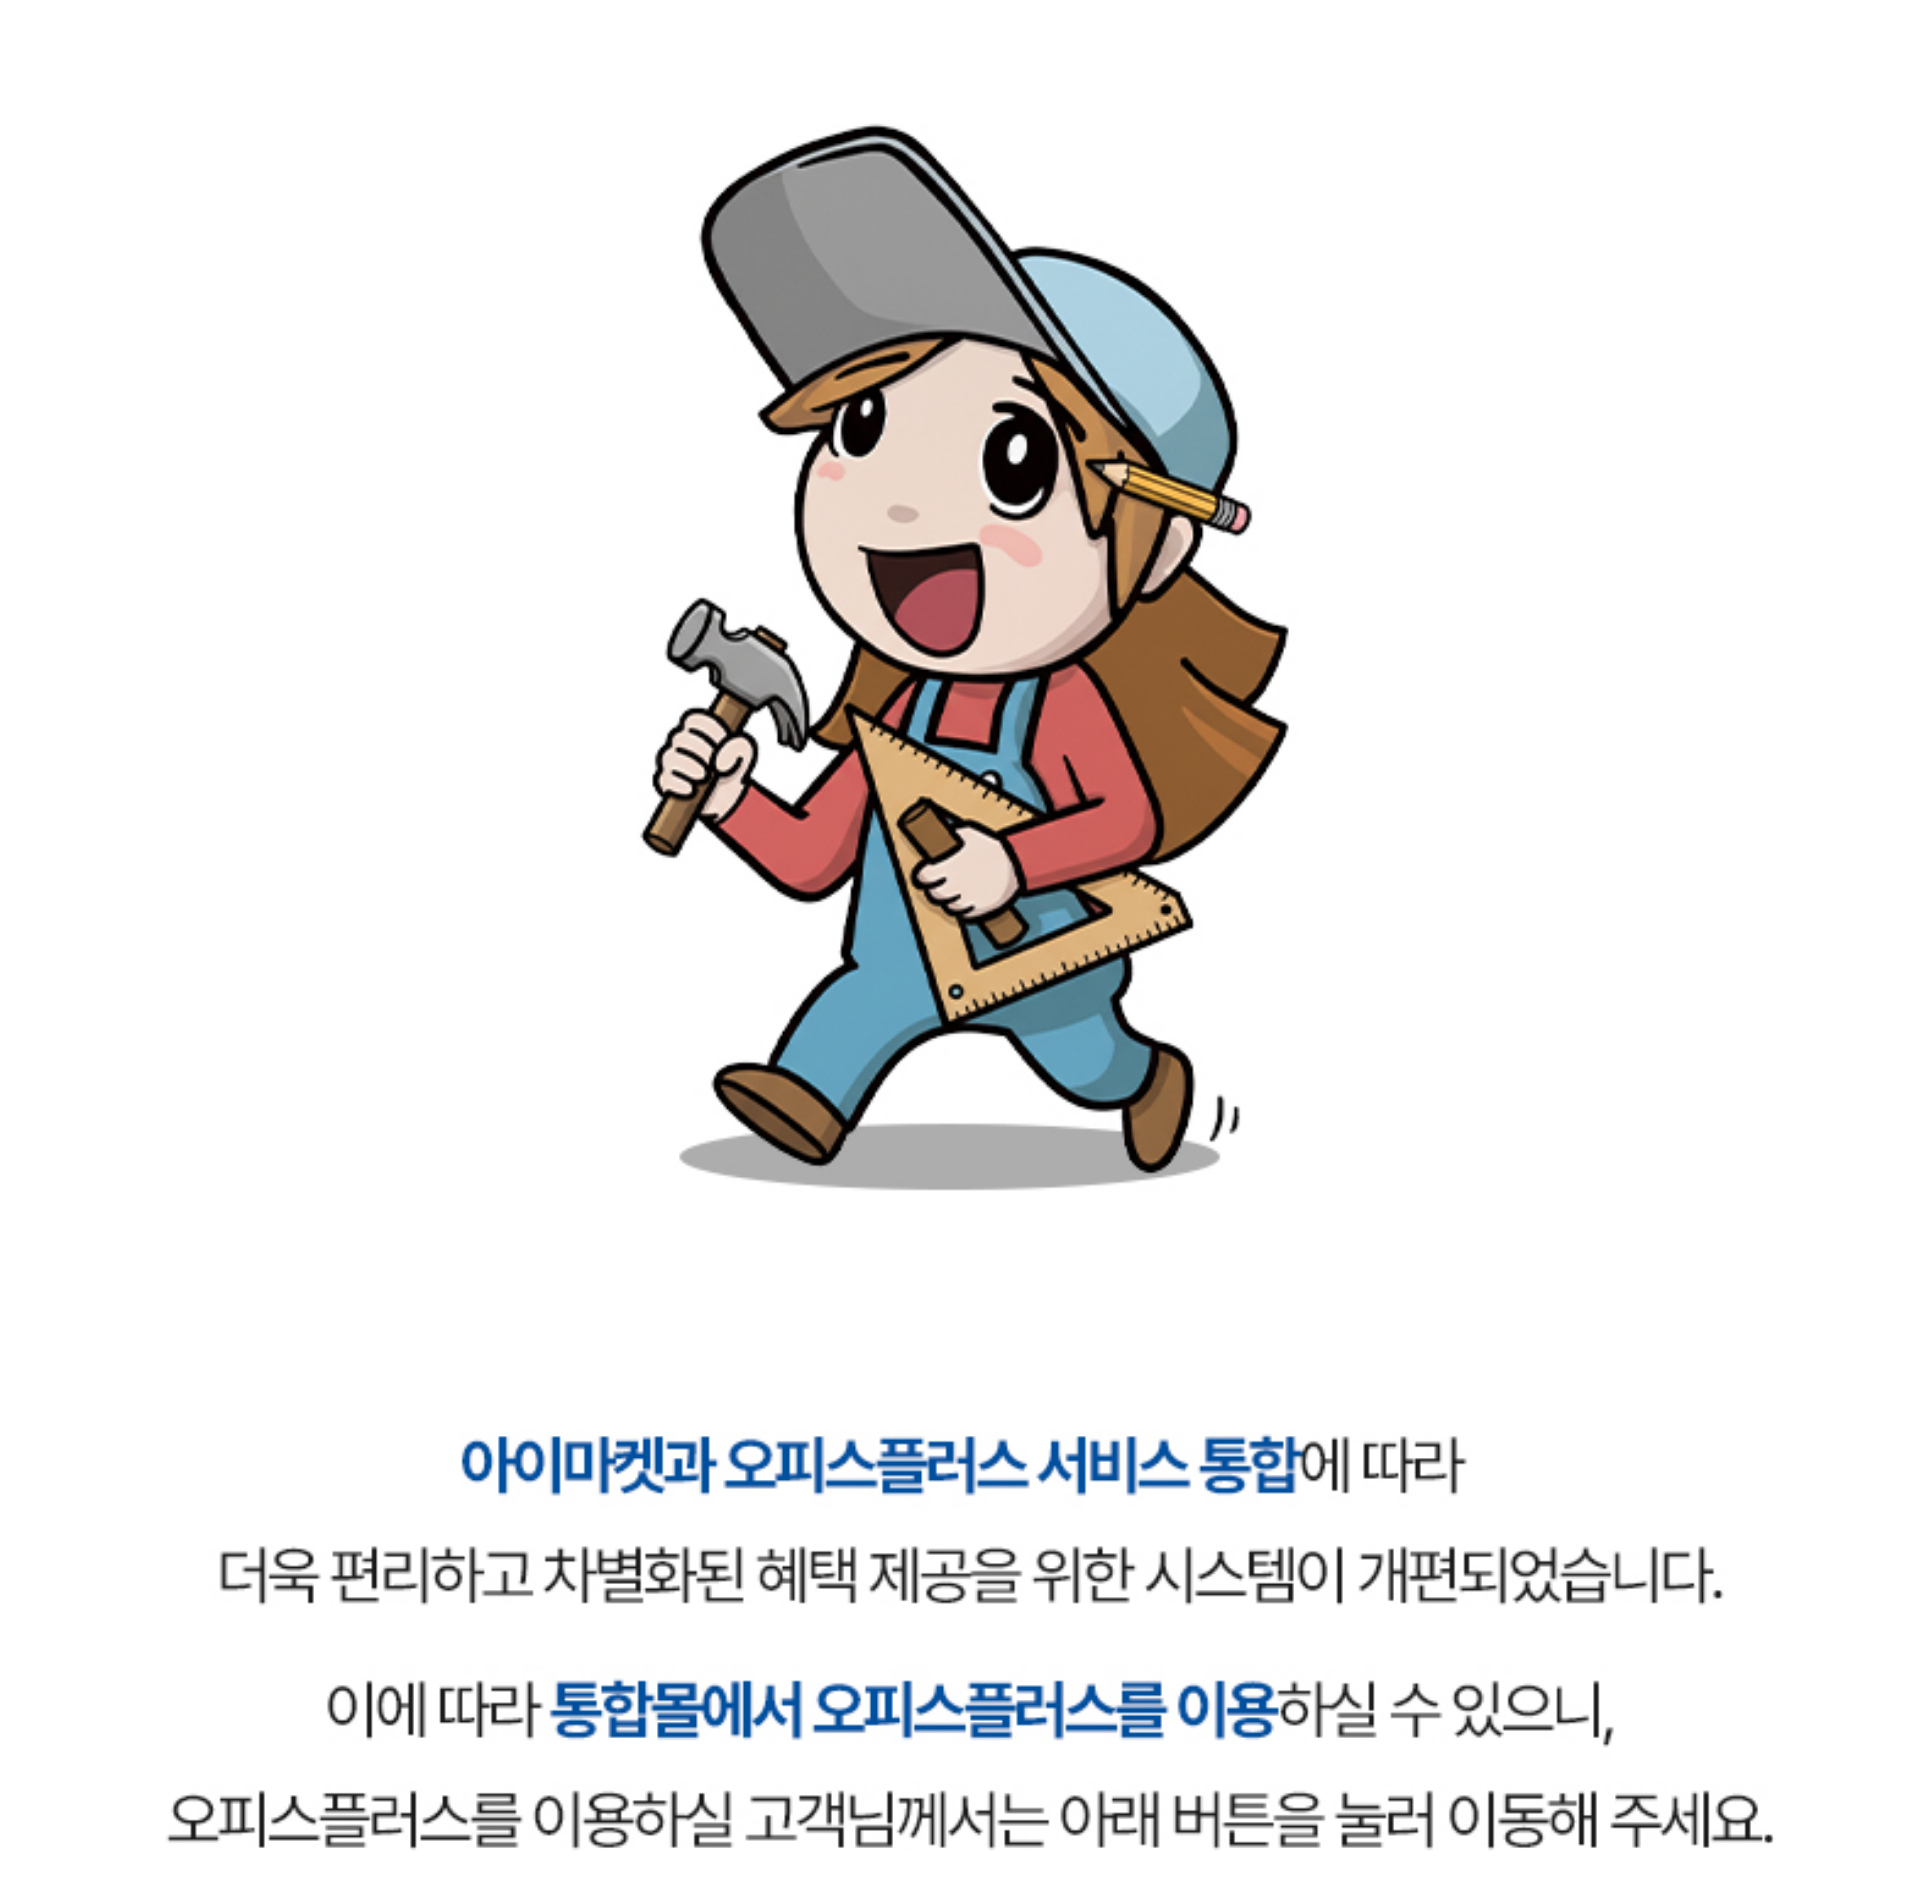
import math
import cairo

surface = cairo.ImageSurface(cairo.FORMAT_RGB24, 1906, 1904)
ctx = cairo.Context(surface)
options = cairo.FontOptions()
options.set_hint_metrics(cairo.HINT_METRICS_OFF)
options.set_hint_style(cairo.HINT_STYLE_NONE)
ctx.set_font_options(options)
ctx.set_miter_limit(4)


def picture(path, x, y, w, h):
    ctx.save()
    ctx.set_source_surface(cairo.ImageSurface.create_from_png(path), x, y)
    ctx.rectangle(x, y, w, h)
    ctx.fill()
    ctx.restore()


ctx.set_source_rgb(1, 1, 1)
ctx.paint()
picture("img1.png", 165, 123, 1610, 1728)
surface.write_to_png("page.png")
